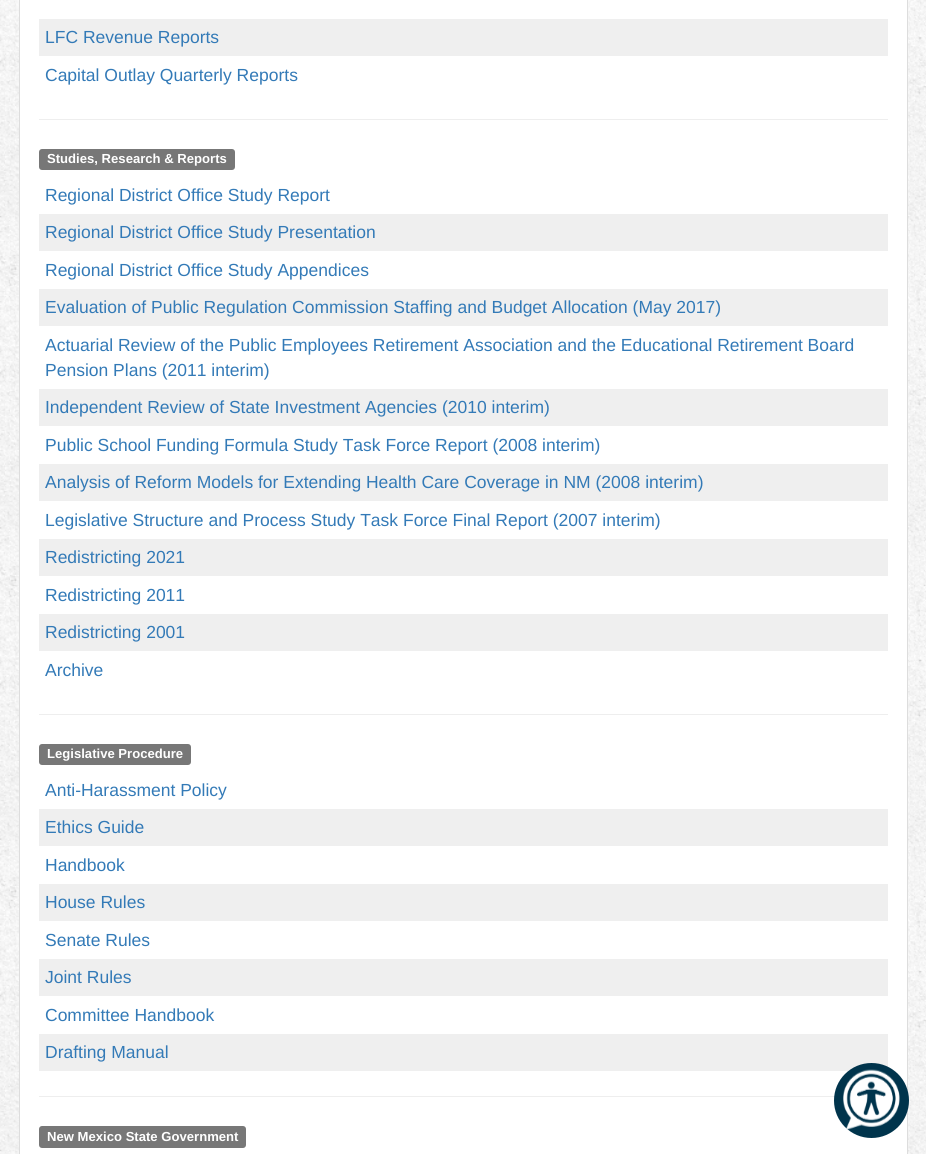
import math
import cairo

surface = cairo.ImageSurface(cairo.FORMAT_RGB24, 926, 1154)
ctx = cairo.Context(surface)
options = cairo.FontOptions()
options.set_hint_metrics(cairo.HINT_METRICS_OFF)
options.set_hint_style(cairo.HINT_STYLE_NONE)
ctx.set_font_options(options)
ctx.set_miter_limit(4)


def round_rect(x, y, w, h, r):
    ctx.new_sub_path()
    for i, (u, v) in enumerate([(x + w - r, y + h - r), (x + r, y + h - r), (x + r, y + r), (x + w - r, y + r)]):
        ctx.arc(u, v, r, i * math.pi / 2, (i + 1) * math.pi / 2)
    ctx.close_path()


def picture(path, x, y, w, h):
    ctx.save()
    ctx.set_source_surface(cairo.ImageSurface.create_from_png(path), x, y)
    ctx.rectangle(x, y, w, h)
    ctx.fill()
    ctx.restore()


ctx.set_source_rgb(1, 1, 1)
ctx.paint()
picture("img1.png", 0, 0, 926, 1154)
ctx.set_source_rgb(1, 1, 1)
ctx.rectangle(19.5, -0.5, 888, 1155)
ctx.fill_preserve()
ctx.set_source_rgb(0.867, 0.867, 0.867)
ctx.set_line_width(1)
ctx.stroke()
ctx.set_source_rgb(0.937, 0.937, 0.937)
ctx.rectangle(39, 19, 849, 37)
ctx.fill()
ctx.select_font_face("Liberation Sans")
ctx.set_font_size(17.5)
ctx.set_source_rgb(0.2, 0.478, 0.718)
ctx.move_to(45, 43)
ctx.show_text("LFC Revenue Reports")
ctx.move_to(45, 81)
ctx.show_text("Capital Outlay Quarterly Reports")
ctx.set_source_rgb(0.933, 0.933, 0.933)
ctx.rectangle(39, 119, 849, 1)
ctx.fill()
ctx.set_source_rgb(0.467, 0.467, 0.467)
round_rect(39, 149, 196, 21, 3)
ctx.fill()
ctx.select_font_face("Liberation Sans", cairo.FONT_SLANT_NORMAL, cairo.FONT_WEIGHT_BOLD)
ctx.set_font_size(13.1)
ctx.set_source_rgb(1, 1, 1)
ctx.move_to(47, 163)
ctx.show_text("Studies, Research & Reports")
ctx.select_font_face("Liberation Sans")
ctx.set_font_size(17.5)
ctx.set_source_rgb(0.2, 0.478, 0.718)
ctx.move_to(45, 201)
ctx.show_text("Regional District Office Study Report")
ctx.set_source_rgb(0.937, 0.937, 0.937)
ctx.rectangle(39, 214, 849, 37)
ctx.fill()
ctx.set_source_rgb(0.2, 0.478, 0.718)
ctx.move_to(45, 238)
ctx.show_text("Regional District Office Study Presentation")
ctx.move_to(45, 276)
ctx.show_text("Regional District Office Study Appendices")
ctx.set_source_rgb(0.937, 0.937, 0.937)
ctx.rectangle(39, 289, 849, 37)
ctx.fill()
ctx.set_source_rgb(0.2, 0.478, 0.718)
ctx.move_to(45, 313)
ctx.show_text("Evaluation of Public Regulation Commission Staffing and Budget Allocation (May 2017)")
ctx.move_to(45, 351)
ctx.show_text("Actuarial Review of the Public Employees Retirement Association and the Educational Retirement Board")
ctx.move_to(45, 376)
ctx.show_text("Pension Plans (2011 interim)")
ctx.set_source_rgb(0.937, 0.937, 0.937)
ctx.rectangle(39, 389, 849, 37)
ctx.fill()
ctx.set_source_rgb(0.2, 0.478, 0.718)
ctx.move_to(45, 413)
ctx.show_text("Independent Review of State Investment Agencies (2010 interim)")
ctx.move_to(45, 451)
ctx.show_text("Public School Funding Formula Study Task Force Report (2008 interim)")
ctx.set_source_rgb(0.937, 0.937, 0.937)
ctx.rectangle(39, 464, 849, 37)
ctx.fill()
ctx.set_source_rgb(0.2, 0.478, 0.718)
ctx.move_to(45, 488)
ctx.show_text("Analysis of Reform Models for Extending Health Care Coverage in NM (2008 interim)")
ctx.move_to(45, 526)
ctx.show_text("Legislative Structure and Process Study Task Force Final Report (2007 interim)")
ctx.set_source_rgb(0.937, 0.937, 0.937)
ctx.rectangle(39, 539, 849, 37)
ctx.fill()
ctx.set_source_rgb(0.2, 0.478, 0.718)
ctx.move_to(45, 563)
ctx.show_text("Redistricting 2021")
ctx.move_to(45, 601)
ctx.show_text("Redistricting 2011")
ctx.set_source_rgb(0.937, 0.937, 0.937)
ctx.rectangle(39, 614, 849, 37)
ctx.fill()
ctx.set_source_rgb(0.2, 0.478, 0.718)
ctx.move_to(45, 638)
ctx.show_text("Redistricting 2001")
ctx.move_to(45, 676)
ctx.show_text("Archive")
ctx.set_source_rgb(0.933, 0.933, 0.933)
ctx.rectangle(39, 714, 849, 1)
ctx.fill()
ctx.set_source_rgb(0.467, 0.467, 0.467)
round_rect(39, 744, 152, 21, 3)
ctx.fill()
ctx.select_font_face("Liberation Sans", cairo.FONT_SLANT_NORMAL, cairo.FONT_WEIGHT_BOLD)
ctx.set_font_size(13.1)
ctx.set_source_rgb(1, 1, 1)
ctx.move_to(47, 758)
ctx.show_text("Legislative Procedure")
ctx.select_font_face("Liberation Sans")
ctx.set_font_size(17.5)
ctx.set_source_rgb(0.2, 0.478, 0.718)
ctx.move_to(45, 796)
ctx.show_text("Anti-Harassment Policy")
ctx.set_source_rgb(0.937, 0.937, 0.937)
ctx.rectangle(39, 809, 849, 37)
ctx.fill()
ctx.set_source_rgb(0.2, 0.478, 0.718)
ctx.move_to(45, 833)
ctx.show_text("Ethics Guide")
ctx.move_to(45, 871)
ctx.show_text("Handbook")
ctx.set_source_rgb(0.937, 0.937, 0.937)
ctx.rectangle(39, 884, 849, 37)
ctx.fill()
ctx.set_source_rgb(0.2, 0.478, 0.718)
ctx.move_to(45, 908)
ctx.show_text("House Rules")
ctx.move_to(45, 946)
ctx.show_text("Senate Rules")
ctx.set_source_rgb(0.937, 0.937, 0.937)
ctx.rectangle(39, 959, 849, 37)
ctx.fill()
ctx.set_source_rgb(0.2, 0.478, 0.718)
ctx.move_to(45, 983)
ctx.show_text("Joint Rules")
ctx.move_to(45, 1021)
ctx.show_text("Committee Handbook")
ctx.set_source_rgb(0.937, 0.937, 0.937)
ctx.rectangle(39, 1034, 849, 37)
ctx.fill()
ctx.set_source_rgb(0.2, 0.478, 0.718)
ctx.move_to(45, 1058)
ctx.show_text("Drafting Manual")
ctx.set_source_rgb(0.933, 0.933, 0.933)
ctx.rectangle(39, 1096, 796, 1)
ctx.fill()
ctx.set_source_rgb(0.467, 0.467, 0.467)
round_rect(39, 1126, 207, 22, 3)
ctx.fill()
ctx.select_font_face("Liberation Sans", cairo.FONT_SLANT_NORMAL, cairo.FONT_WEIGHT_BOLD)
ctx.set_font_size(13.1)
ctx.set_source_rgb(1, 1, 1)
ctx.move_to(47, 1141)
ctx.show_text("New Mexico State Government")
ctx.set_source_rgb(0, 0.204, 0.298)
ctx.new_path()
ctx.arc(871.5, 1100.5, 37.5, 0, 2 * math.pi)
ctx.fill()
picture("img2.png", 843, 1069, 57, 61)
surface.write_to_png("page.png")
